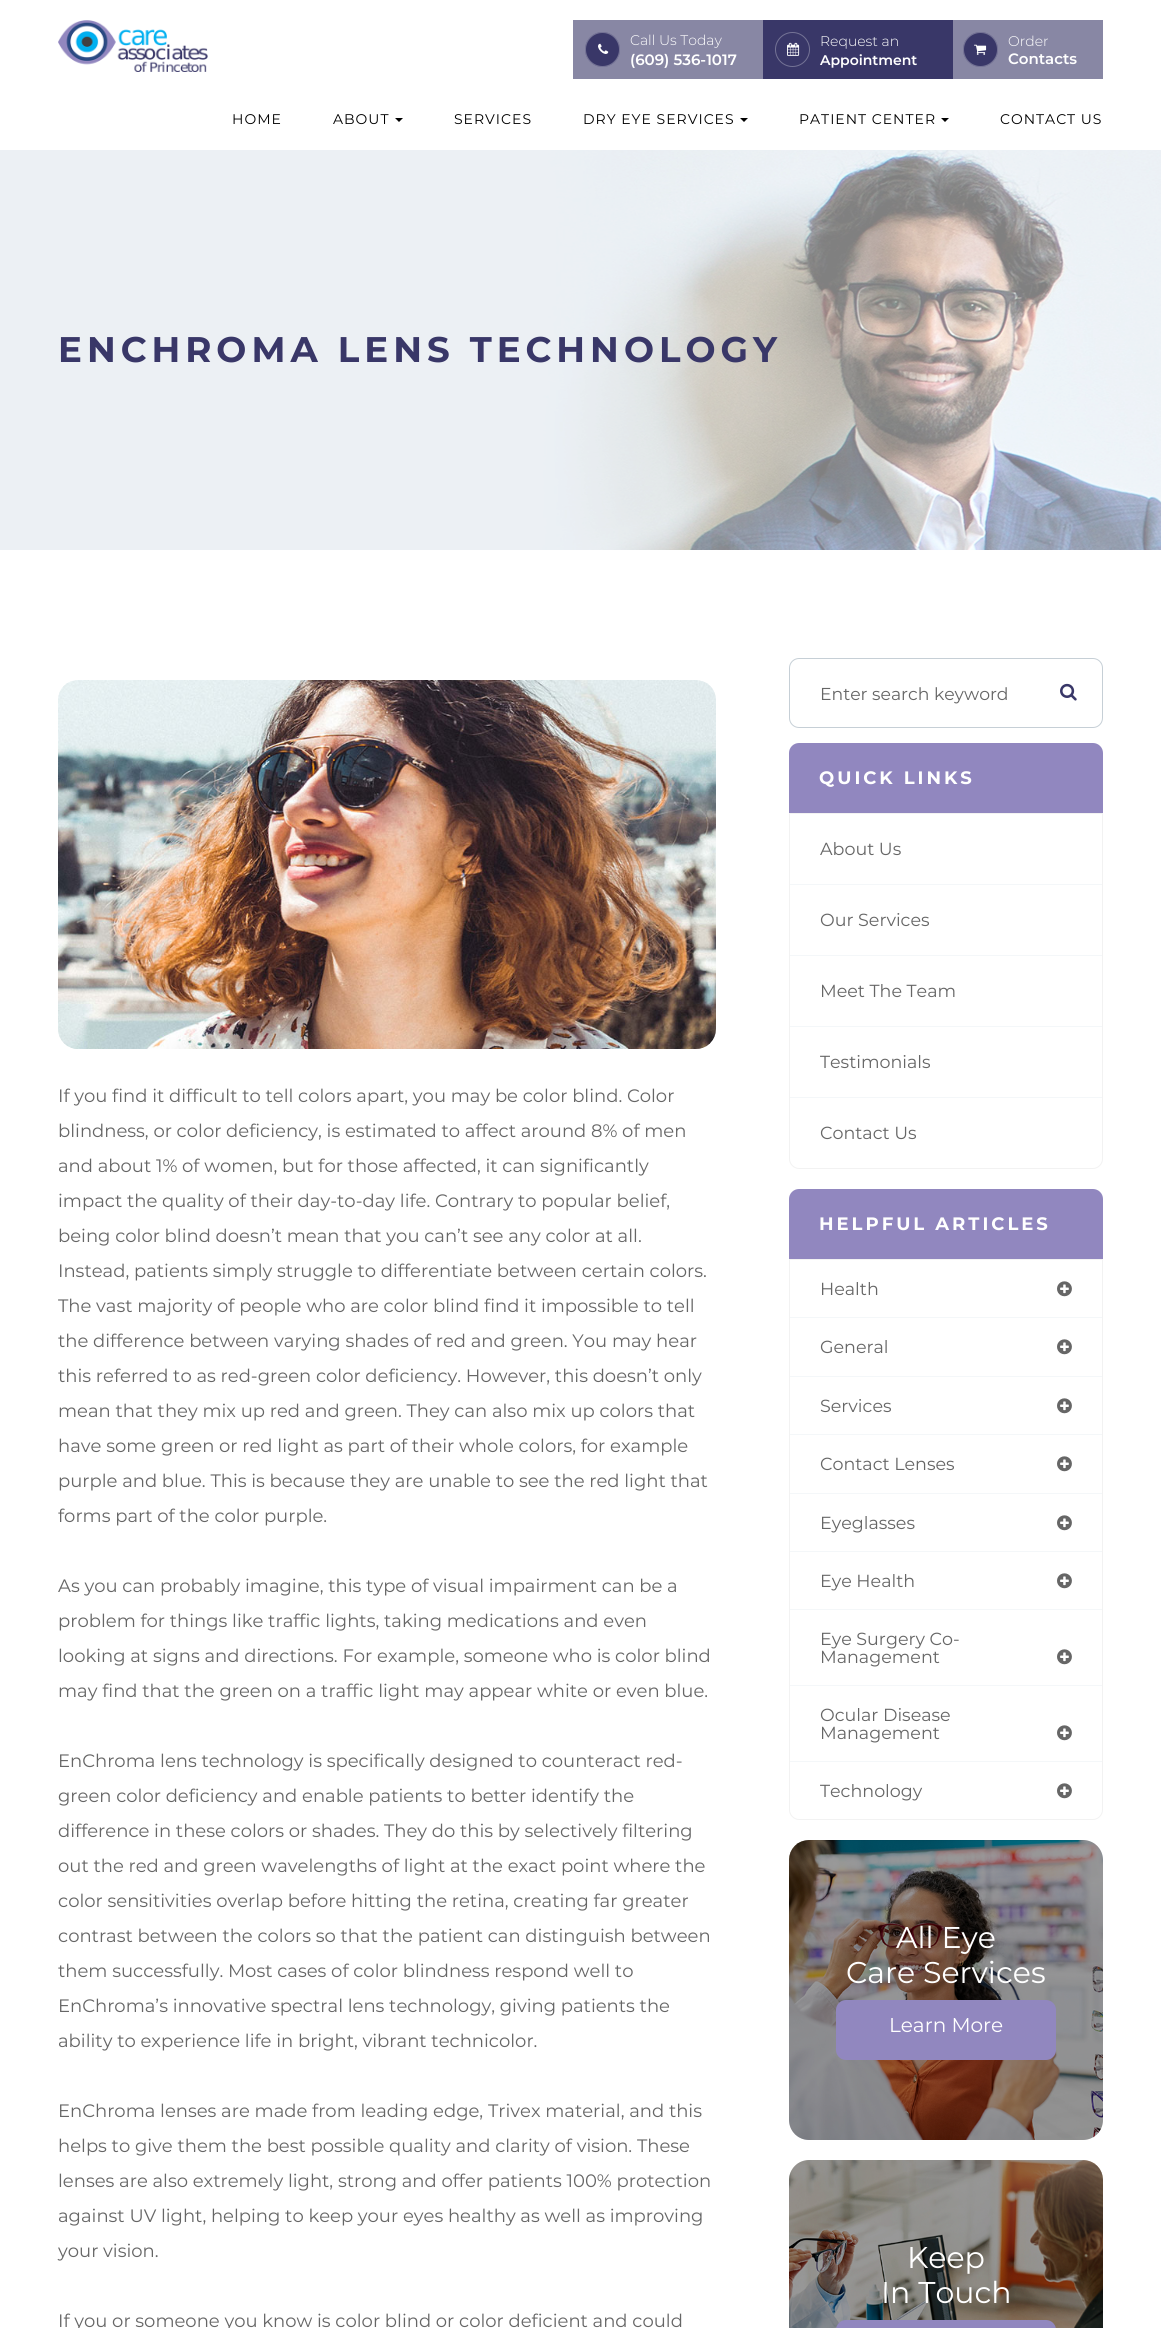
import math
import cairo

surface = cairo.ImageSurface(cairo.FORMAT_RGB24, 1161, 2328)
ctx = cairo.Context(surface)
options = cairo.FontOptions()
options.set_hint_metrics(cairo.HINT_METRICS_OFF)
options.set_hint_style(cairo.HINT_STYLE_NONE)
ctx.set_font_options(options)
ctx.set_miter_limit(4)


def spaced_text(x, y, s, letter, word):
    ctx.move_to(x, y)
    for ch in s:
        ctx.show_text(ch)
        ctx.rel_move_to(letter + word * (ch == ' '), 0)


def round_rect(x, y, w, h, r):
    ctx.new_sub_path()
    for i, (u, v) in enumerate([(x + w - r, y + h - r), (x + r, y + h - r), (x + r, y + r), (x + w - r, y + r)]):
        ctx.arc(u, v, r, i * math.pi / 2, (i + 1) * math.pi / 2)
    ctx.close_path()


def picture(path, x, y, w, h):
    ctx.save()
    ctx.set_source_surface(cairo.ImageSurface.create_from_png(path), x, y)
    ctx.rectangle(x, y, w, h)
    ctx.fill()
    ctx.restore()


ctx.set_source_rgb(1, 1, 1)
ctx.paint()
picture("img1.png", 58, 20, 150, 52)
ctx.set_source_rgb(0.533, 0.529, 0.643)
ctx.rectangle(573, 20, 190, 59)
ctx.fill()
ctx.set_source_rgb(0.224, 0.216, 0.408)
ctx.arc(602.5, 49.5, 17.5, 0, 2 * math.pi)
ctx.fill()
ctx.arc(602.5, 49.5, 17, 0, 2 * math.pi)
ctx.set_source_rgba(1, 1, 1, 0.3)
ctx.set_line_width(1)
ctx.stroke()
picture("img2.png", 598, 43, 11, 11)
ctx.select_font_face("Montserrat Light")
ctx.set_font_size(14)
ctx.set_source_rgb(1, 1, 1)
ctx.move_to(630, 45)
ctx.show_text("Call Us Today")
ctx.select_font_face("Montserrat SemiBold")
ctx.set_font_size(15)
ctx.move_to(630, 65)
ctx.show_text("(609) 536-1017")
ctx.save()
ctx.rectangle(763, 20, 190, 59)
ctx.clip()
ctx.set_source_rgb(0.224, 0.216, 0.408)
ctx.arc(805.5, 59.5, 262.5, 0, 2 * math.pi)
ctx.fill()
ctx.restore()
ctx.arc(792.5, 49.5, 17, 0, 2 * math.pi)
ctx.set_source_rgb(0.455, 0.451, 0.584)
ctx.stroke()
picture("img3.png", 787, 42, 13, 14)
ctx.select_font_face("Montserrat Light")
ctx.set_font_size(14)
ctx.set_source_rgb(1, 1, 1)
ctx.move_to(820, 46)
ctx.show_text("Request an")
ctx.select_font_face("Montserrat SemiBold")
ctx.move_to(820, 65)
ctx.show_text("Appointment")
ctx.set_source_rgb(0.533, 0.529, 0.643)
ctx.rectangle(953, 20, 150, 59)
ctx.fill()
ctx.set_source_rgb(0.224, 0.216, 0.408)
ctx.arc(980.5, 49.5, 17.5, 0, 2 * math.pi)
ctx.fill()
ctx.arc(980.5, 49.5, 17, 0, 2 * math.pi)
ctx.set_source_rgba(1, 1, 1, 0.3)
ctx.stroke()
picture("img4.png", 974, 44, 13, 11)
ctx.select_font_face("Montserrat Light")
ctx.set_source_rgb(1, 1, 1)
ctx.move_to(1008, 46)
ctx.show_text("Order")
ctx.select_font_face("Montserrat SemiBold")
ctx.set_font_size(15)
ctx.move_to(1008, 64)
ctx.show_text("Contacts")
ctx.select_font_face("Montserrat")
ctx.set_font_size(14)
ctx.set_source_rgb(0, 0, 0)
spaced_text(232, 124, "HOME", 1, 0)
spaced_text(333, 124, "ABOUT", 1, 0)
ctx.new_path()
ctx.move_to(395, 118)
ctx.line_to(403, 118)
ctx.line_to(399, 122)
ctx.close_path()
ctx.fill()
spaced_text(454, 124, "SERVICES", 1, 0)
spaced_text(583, 124, "DRY EYE SERVICES", 1, 0)
ctx.new_path()
ctx.move_to(740, 118)
ctx.line_to(748, 118)
ctx.line_to(744, 122)
ctx.close_path()
ctx.fill()
spaced_text(799, 124, "PATIENT CENTER", 1, 0)
ctx.new_path()
ctx.move_to(941, 118)
ctx.line_to(949, 118)
ctx.line_to(945, 122)
ctx.close_path()
ctx.fill()
spaced_text(1000, 124, "CONTACT US", 1, 0)
picture("img5.png", 0, 150, 1161, 400)
ctx.select_font_face("Montserrat", cairo.FONT_SLANT_NORMAL, cairo.FONT_WEIGHT_BOLD)
ctx.set_font_size(35.6)
ctx.set_source_rgb(0.224, 0.216, 0.408)
spaced_text(58, 362, "ENCHROMA LENS TECHNOLOGY", 5, 0)
picture("img6.png", 58, 680, 658, 369)
ctx.select_font_face("Montserrat")
ctx.set_font_size(18)
ctx.set_source_rgb(0.4, 0.4, 0.4)
ctx.move_to(58, 1102)
ctx.show_text("If you find it difficult to tell colors apart, you may be color blind. Color")
ctx.move_to(58, 1137)
ctx.show_text("blindness, or color deficiency, is estimated to affect around 8% of men")
ctx.move_to(58, 1172)
ctx.show_text("and about 1% of women, but for those affected, it can significantly")
ctx.move_to(58, 1207)
ctx.show_text("impact the quality of their day-to-day life. Contrary to popular belief,")
ctx.move_to(58, 1242)
ctx.show_text("being color blind doesn’t mean that you can’t see any color at all.")
ctx.move_to(58, 1277)
ctx.show_text("Instead, patients simply struggle to differentiate between certain colors.")
ctx.move_to(58, 1312)
ctx.show_text("The vast majority of people who are color blind find it impossible to tell")
ctx.move_to(58, 1347)
ctx.show_text("the difference between varying shades of red and green. You may hear")
ctx.move_to(58, 1382)
ctx.show_text("this referred to as red-green color deficiency. However, this doesn’t only")
ctx.move_to(58, 1417)
ctx.show_text("mean that they mix up red and green. They can also mix up colors that")
ctx.move_to(58, 1452)
ctx.show_text("have some green or red light as part of their whole colors, for example")
ctx.move_to(58, 1487)
ctx.show_text("purple and blue. This is because they are unable to see the red light that")
ctx.move_to(58, 1522)
ctx.show_text("forms part of the color purple.")
ctx.move_to(58, 1592)
ctx.show_text("As you can probably imagine, this type of visual impairment can be a")
ctx.move_to(58, 1627)
ctx.show_text("problem for things like traffic lights, taking medications and even")
ctx.move_to(58, 1662)
ctx.show_text("looking at signs and directions. For example, someone who is color blind")
ctx.move_to(58, 1697)
ctx.show_text("may find that the green on a traffic light may appear white or even blue.")
ctx.move_to(58, 1767)
ctx.show_text("EnChroma lens technology is specifically designed to counteract red-")
ctx.move_to(58, 1802)
ctx.show_text("green color deficiency and enable patients to better identify the")
ctx.move_to(58, 1837)
ctx.show_text("difference in these colors or shades. They do this by selectively filtering")
ctx.move_to(58, 1872)
ctx.show_text("out the red and green wavelengths of light at the exact point where the")
ctx.move_to(58, 1907)
ctx.show_text("color sensitivities overlap before hitting the retina, creating far greater")
ctx.move_to(58, 1942)
ctx.show_text("contrast between the colors so that the patient can distinguish between")
ctx.move_to(58, 1977)
ctx.show_text("them successfully. Most cases of color blindness respond well to")
ctx.move_to(58, 2012)
ctx.show_text("EnChroma’s innovative spectral lens technology, giving patients the")
ctx.move_to(58, 2047)
ctx.show_text("ability to experience life in bright, vibrant technicolor.")
ctx.move_to(58, 2117)
ctx.show_text("EnChroma lenses are made from leading edge, Trivex material, and this")
ctx.move_to(58, 2152)
ctx.show_text("helps to give them the best possible quality and clarity of vision. These")
ctx.move_to(58, 2187)
ctx.show_text("lenses are also extremely light, strong and offer patients 100% protection")
ctx.move_to(58, 2222)
ctx.show_text("against UV light, helping to keep your eyes healthy as well as improving")
ctx.move_to(58, 2257)
ctx.show_text("your vision.")
ctx.move_to(58, 2327)
ctx.show_text("If you or someone you know is color blind or color deficient and could")
round_rect(789.5, 658.5, 313, 69, 9.5)
ctx.set_source_rgb(0.776, 0.812, 0.839)
ctx.stroke()
ctx.set_font_size(17.25)
ctx.set_source_rgb(0.4, 0.4, 0.4)
ctx.move_to(820, 700)
ctx.show_text("Enter search keyword")
picture("img7.png", 1060, 683, 17, 18)
ctx.set_source_rgb(0.569, 0.529, 0.749)
ctx.new_path()
ctx.move_to(799, 743)
ctx.line_to(1093, 743)
ctx.curve_to(1098.5, 743, 1103, 747.5, 1103, 753)
ctx.line_to(1103, 813)
ctx.line_to(789, 813)
ctx.line_to(789, 753)
ctx.curve_to(789, 747.5, 793.5, 743, 799, 743)
ctx.close_path()
ctx.fill()
ctx.select_font_face("Montserrat", cairo.FONT_SLANT_NORMAL, cairo.FONT_WEIGHT_BOLD)
ctx.set_font_size(18)
ctx.set_source_rgb(1, 1, 1)
spaced_text(819, 784, "QUICK LINKS", 3, 0)
ctx.new_path()
ctx.move_to(789.5, 813.5)
ctx.line_to(1102.5, 813.5)
ctx.line_to(1102.5, 1159)
ctx.curve_to(1102.5, 1164, 1098, 1168.5, 1093, 1168.5)
ctx.line_to(799, 1168.5)
ctx.curve_to(794, 1168.5, 789.5, 1164, 789.5, 1159)
ctx.close_path()
ctx.set_source_rgb(0.949, 0.949, 0.949)
ctx.stroke()
ctx.set_source_rgb(0.957, 0.965, 0.973)
ctx.rectangle(790, 884, 312, 1)
ctx.fill()
ctx.select_font_face("Montserrat")
ctx.set_font_size(17.5)
ctx.set_source_rgb(0.4, 0.4, 0.4)
ctx.move_to(820, 855)
ctx.show_text("About Us")
ctx.set_source_rgb(0.957, 0.965, 0.973)
ctx.rectangle(790, 955, 312, 1)
ctx.fill()
ctx.set_source_rgb(0.4, 0.4, 0.4)
ctx.move_to(820, 926)
ctx.show_text("Our Services")
ctx.set_source_rgb(0.957, 0.965, 0.973)
ctx.rectangle(790, 1026, 312, 1)
ctx.fill()
ctx.set_source_rgb(0.4, 0.4, 0.4)
ctx.move_to(820, 997)
ctx.show_text("Meet The Team")
ctx.set_source_rgb(0.957, 0.965, 0.973)
ctx.rectangle(790, 1097, 312, 1)
ctx.fill()
ctx.set_source_rgb(0.4, 0.4, 0.4)
ctx.move_to(820, 1068)
ctx.show_text("Testimonials")
ctx.move_to(820, 1139)
ctx.show_text("Contact Us")
ctx.set_source_rgb(0.569, 0.529, 0.749)
ctx.new_path()
ctx.move_to(799, 1189)
ctx.line_to(1093, 1189)
ctx.curve_to(1098.5, 1189, 1103, 1193.5, 1103, 1199)
ctx.line_to(1103, 1259)
ctx.line_to(789, 1259)
ctx.line_to(789, 1199)
ctx.curve_to(789, 1193.5, 793.5, 1189, 799, 1189)
ctx.close_path()
ctx.fill()
ctx.select_font_face("Montserrat", cairo.FONT_SLANT_NORMAL, cairo.FONT_WEIGHT_BOLD)
ctx.set_font_size(18)
ctx.set_source_rgb(1, 1, 1)
spaced_text(819, 1230, "HELPFUL ARTICLES", 3, 0)
ctx.new_path()
ctx.move_to(789.5, 1259.5)
ctx.line_to(1102.5, 1259.5)
ctx.line_to(1102.5, 1810)
ctx.curve_to(1102.5, 1815, 1098, 1819.5, 1093, 1819.5)
ctx.line_to(799, 1819.5)
ctx.curve_to(794, 1819.5, 789.5, 1815, 789.5, 1810)
ctx.close_path()
ctx.set_source_rgb(0.949, 0.949, 0.949)
ctx.stroke()
ctx.set_source_rgb(0.957, 0.965, 0.973)
ctx.rectangle(790, 1317, 312, 1)
ctx.fill()
ctx.select_font_face("Montserrat")
ctx.set_font_size(17.5)
ctx.set_source_rgb(0.4, 0.4, 0.4)
ctx.move_to(820, 1295)
ctx.show_text("Health")
picture("img8.png", 1057, 1281, 15, 16)
ctx.set_source_rgb(0.957, 0.965, 0.973)
ctx.rectangle(790, 1376, 312, 1)
ctx.fill()
ctx.set_source_rgb(0.4, 0.4, 0.4)
ctx.move_to(820, 1353)
ctx.show_text("General")
picture("img8.png", 1057, 1339, 15, 16)
ctx.set_source_rgb(0.957, 0.965, 0.973)
ctx.rectangle(790, 1434, 312, 1)
ctx.fill()
ctx.set_source_rgb(0.4, 0.4, 0.4)
ctx.move_to(820, 1412)
ctx.show_text("Services")
picture("img8.png", 1057, 1398, 15, 16)
ctx.set_source_rgb(0.957, 0.965, 0.973)
ctx.rectangle(790, 1493, 312, 1)
ctx.fill()
ctx.set_source_rgb(0.4, 0.4, 0.4)
ctx.move_to(820, 1470)
ctx.show_text("Contact Lenses")
picture("img8.png", 1057, 1456, 15, 16)
ctx.set_source_rgb(0.957, 0.965, 0.973)
ctx.rectangle(790, 1551, 312, 1)
ctx.fill()
ctx.set_source_rgb(0.4, 0.4, 0.4)
ctx.move_to(820, 1529)
ctx.show_text("Eyeglasses")
picture("img8.png", 1057, 1515, 15, 16)
ctx.set_source_rgb(0.957, 0.965, 0.973)
ctx.rectangle(790, 1609, 312, 1)
ctx.fill()
ctx.set_source_rgb(0.4, 0.4, 0.4)
ctx.move_to(820, 1587)
ctx.show_text("Eye Health")
picture("img8.png", 1057, 1573, 15, 16)
ctx.set_source_rgb(0.957, 0.965, 0.973)
ctx.rectangle(790, 1685, 312, 1)
ctx.fill()
ctx.set_source_rgb(0.4, 0.4, 0.4)
ctx.move_to(820, 1645)
ctx.show_text("Eye Surgery Co-")
ctx.move_to(820, 1663)
ctx.show_text("Management")
picture("img8.png", 1057, 1649, 15, 16)
ctx.set_source_rgb(0.957, 0.965, 0.973)
ctx.rectangle(790, 1761, 312, 1)
ctx.fill()
ctx.set_source_rgb(0.4, 0.4, 0.4)
ctx.move_to(820, 1721)
ctx.show_text("Ocular Disease")
ctx.move_to(820, 1739)
ctx.show_text("Management")
picture("img8.png", 1057, 1725, 15, 16)
ctx.move_to(820, 1797)
ctx.show_text("Technology")
picture("img8.png", 1057, 1783, 15, 16)
picture("img9.png", 789, 1840, 314, 300)
ctx.set_source_rgba(0, 0, 0, 0.4)
round_rect(789, 1840, 314, 300, 20)
ctx.fill()
ctx.set_font_size(30)
ctx.set_source_rgb(1, 1, 1)
ctx.move_to(896, 1948)
ctx.show_text("All Eye")
ctx.move_to(846, 1983)
ctx.show_text("Care Services")
ctx.set_source_rgb(0.569, 0.529, 0.749)
round_rect(836, 2000, 220, 60, 10)
ctx.fill()
ctx.set_font_size(20)
ctx.set_source_rgb(1, 1, 1)
ctx.move_to(889, 2032)
ctx.show_text("Learn More")
picture("img10.png", 789, 2160, 314, 168)
ctx.set_source_rgba(0, 0, 0, 0.4)
round_rect(789, 2160, 314, 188, 20)
ctx.fill()
ctx.set_font_size(30)
ctx.set_source_rgb(1, 1, 1)
ctx.move_to(907, 2268)
ctx.show_text("Keep")
ctx.move_to(881, 2303)
ctx.show_text("In Touch")
ctx.set_source_rgb(0.569, 0.529, 0.749)
round_rect(836, 2320, 220, 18, 10)
ctx.fill()
surface.write_to_png("page.png")
